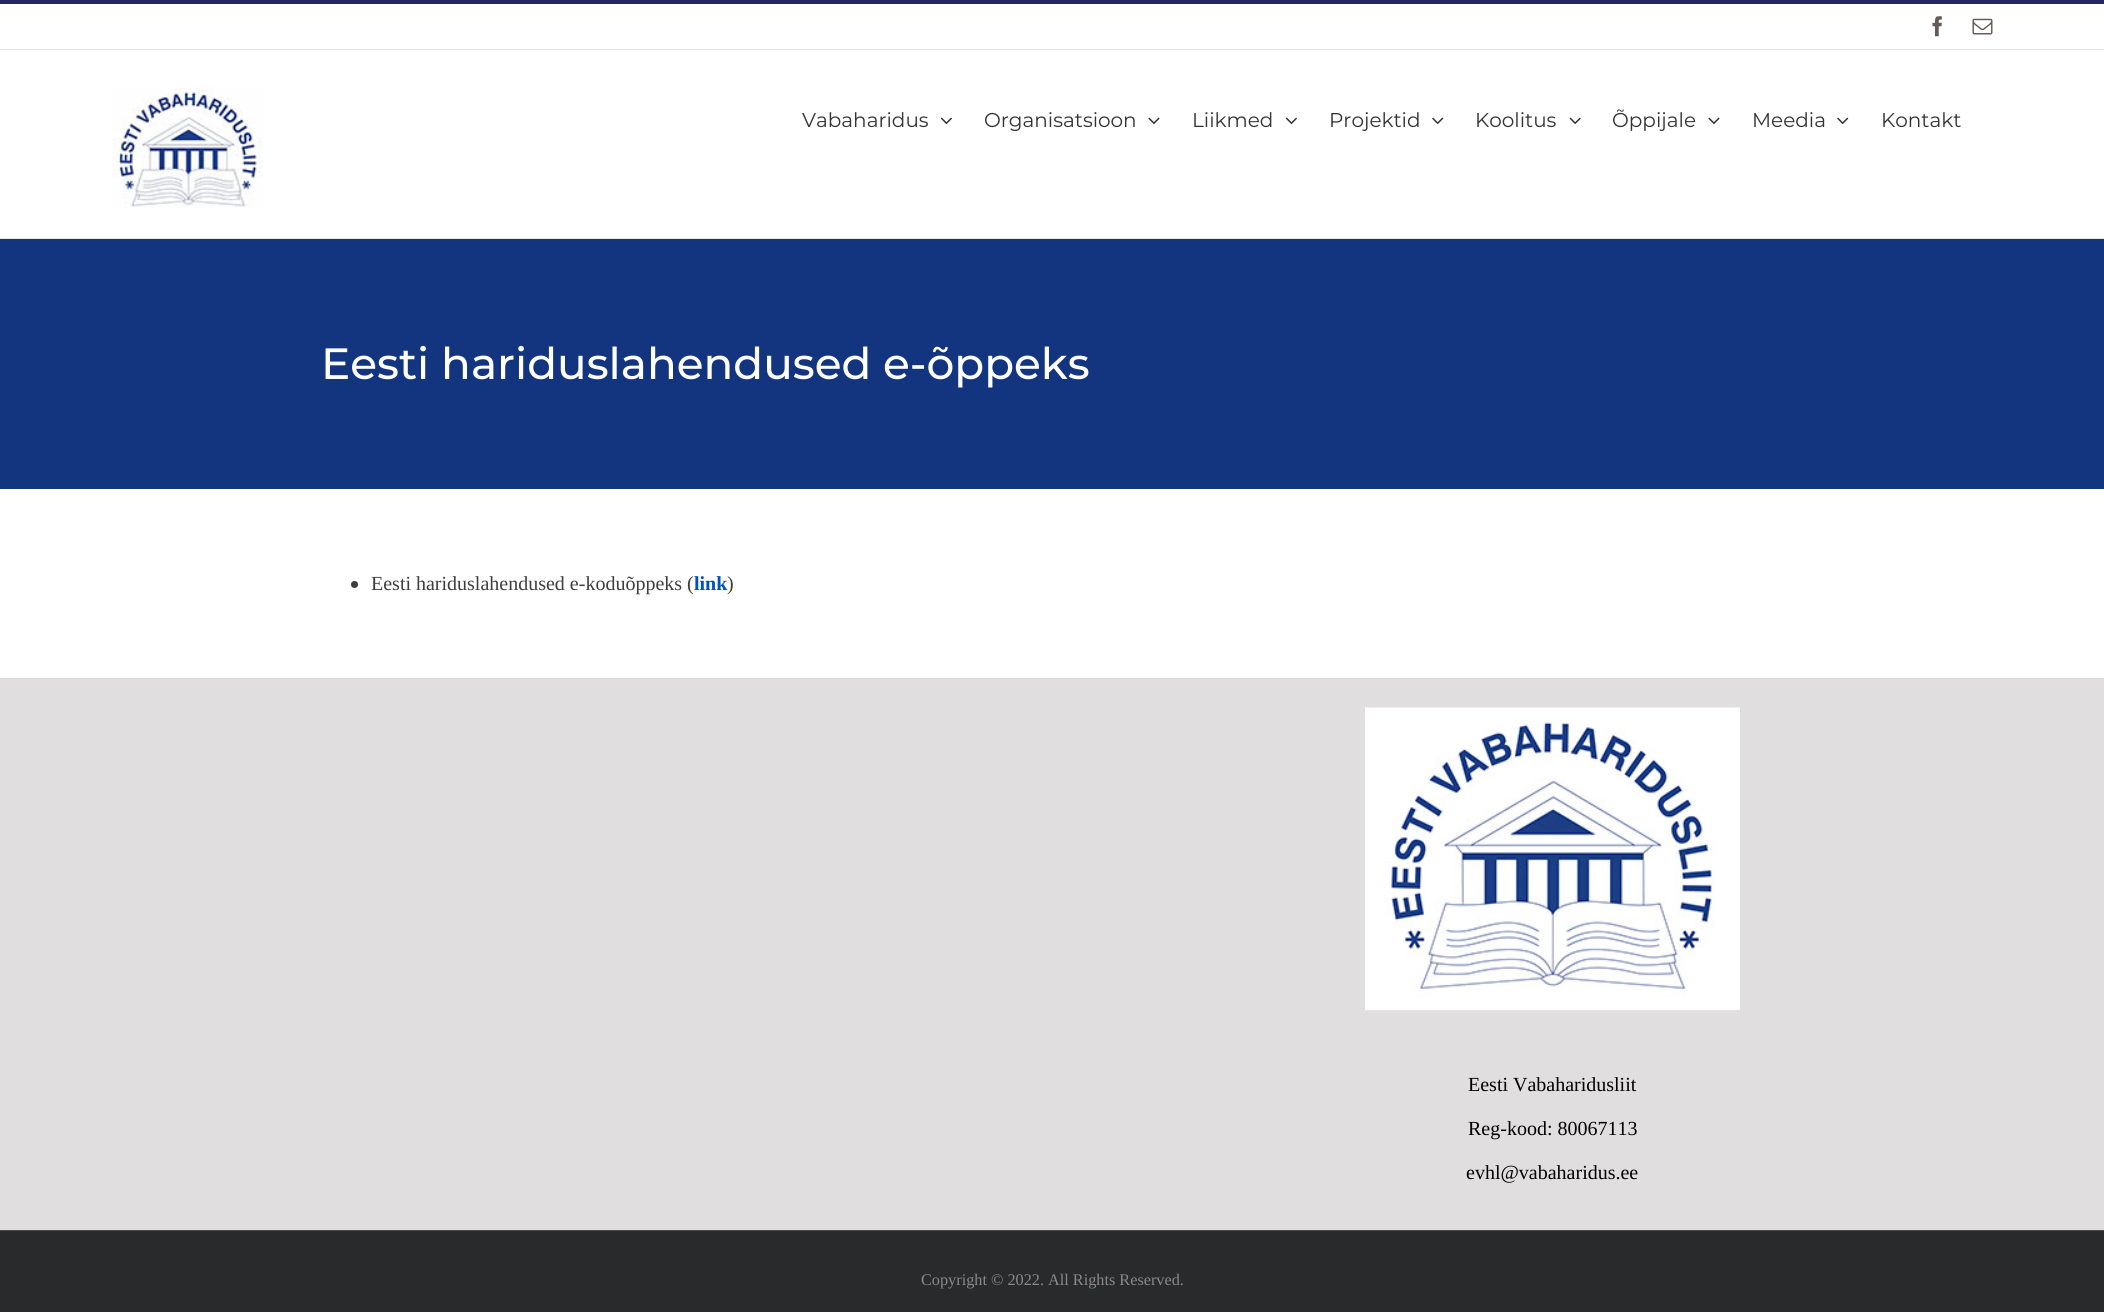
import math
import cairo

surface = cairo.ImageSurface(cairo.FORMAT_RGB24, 2104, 1312)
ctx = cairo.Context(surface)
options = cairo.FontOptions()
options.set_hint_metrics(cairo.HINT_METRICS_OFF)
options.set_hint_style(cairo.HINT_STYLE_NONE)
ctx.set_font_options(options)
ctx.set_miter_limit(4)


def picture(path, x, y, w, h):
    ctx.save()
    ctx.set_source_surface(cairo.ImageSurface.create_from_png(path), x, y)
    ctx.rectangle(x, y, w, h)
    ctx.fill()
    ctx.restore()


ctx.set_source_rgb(1, 1, 1)
ctx.paint()
ctx.set_source_rgb(0.129, 0.153, 0.38)
ctx.rectangle(0, 0, 2104, 4)
ctx.fill()
ctx.set_source_rgb(0.898, 0.898, 0.898)
ctx.rectangle(0, 49, 2104, 1)
ctx.fill()
picture("img1.png", 1932, 16, 10, 21)
picture("img2.png", 1972, 18, 21, 17)
ctx.rectangle(0, 238, 2104, 1)
ctx.fill()
picture("img3.png", 112, 87, 151, 121)
ctx.select_font_face("Montserrat")
ctx.set_font_size(20)
ctx.set_source_rgb(0.2, 0.2, 0.2)
ctx.move_to(802, 127)
ctx.show_text("Vabaharidus")
picture("img4.png", 940, 117, 12, 8)
ctx.move_to(984, 127)
ctx.show_text("Organisatsioon")
picture("img5.png", 1148, 117, 12, 8)
ctx.move_to(1192, 127)
ctx.show_text("Liikmed")
picture("img4.png", 1285, 117, 12, 8)
ctx.move_to(1329, 127)
ctx.show_text("Projektid")
picture("img6.png", 1432, 117, 12, 8)
ctx.move_to(1475, 127)
ctx.show_text("Koolitus")
picture("img7.png", 1569, 117, 12, 8)
ctx.move_to(1612, 127)
ctx.show_text("Õppijale")
picture("img5.png", 1708, 117, 12, 8)
ctx.move_to(1752, 127)
ctx.show_text("Meedia")
picture("img6.png", 1837, 117, 12, 8)
ctx.move_to(1881, 127)
ctx.show_text("Kontakt")
ctx.set_source_rgb(0.075, 0.204, 0.498)
ctx.rectangle(0, 239, 2104, 250)
ctx.fill()
ctx.select_font_face("Montserrat Medium")
ctx.set_font_size(43.75)
ctx.set_source_rgb(1, 1, 1)
ctx.move_to(321, 379)
ctx.show_text("Eesti hariduslahendused e-õppeks")
ctx.set_source_rgb(0.239, 0.239, 0.239)
ctx.new_path()
ctx.arc(354.5, 584.5, 3.5, 0, 2 * math.pi)
ctx.fill()
ctx.select_font_face("Liberation Serif")
ctx.set_font_size(20)
ctx.move_to(371, 590)
ctx.show_text("Eesti hariduslahendused e-koduõppeks (")
ctx.select_font_face("Liberation Serif", cairo.FONT_SLANT_NORMAL, cairo.FONT_WEIGHT_BOLD)
ctx.set_source_rgb(0.004, 0.31, 0.769)
ctx.move_to(694, 590)
ctx.show_text("link")
ctx.select_font_face("Liberation Serif")
ctx.set_source_rgb(0.239, 0.239, 0.239)
ctx.move_to(727, 590)
ctx.show_text(")")
ctx.set_source_rgb(0.878, 0.871, 0.871)
ctx.rectangle(0, 679, 2104, 551)
ctx.fill()
ctx.set_source_rgb(0.847, 0.847, 0.847)
ctx.rectangle(0, 678, 2104, 1)
ctx.fill()
picture("img8.png", 1365, 707, 375, 304)
ctx.set_source_rgb(0, 0, 0)
ctx.move_to(1468, 1091)
ctx.show_text("Eesti Vabaharidusliit")
ctx.move_to(1468, 1135)
ctx.show_text("Reg-kood: 80067113")
ctx.move_to(1466, 1179)
ctx.show_text("evhl@vabaharidus.ee")
ctx.set_source_rgb(0.157, 0.165, 0.169)
ctx.rectangle(0, 1231, 2104, 81)
ctx.fill()
ctx.set_source_rgb(0.294, 0.298, 0.302)
ctx.rectangle(0, 1230, 2104, 1)
ctx.fill()
ctx.set_font_size(16.25)
ctx.set_source_rgb(0.549, 0.537, 0.537)
ctx.move_to(921, 1285)
ctx.show_text("Copyright © 2022. All Rights Reserved.")
surface.write_to_png("page.png")
